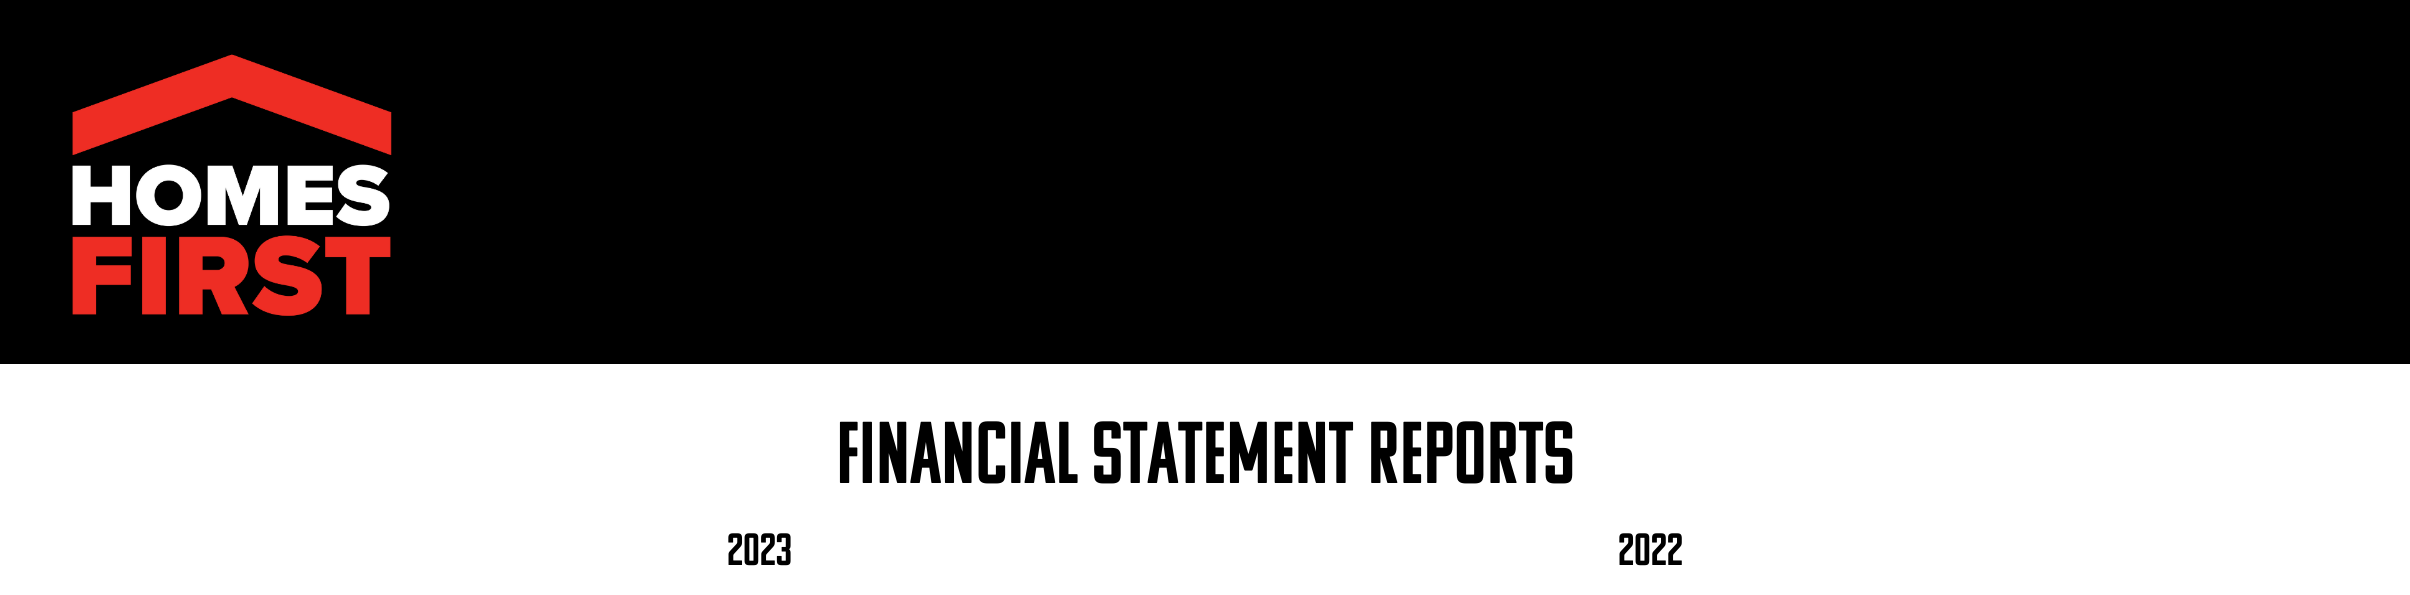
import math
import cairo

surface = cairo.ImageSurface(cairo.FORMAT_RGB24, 2410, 595)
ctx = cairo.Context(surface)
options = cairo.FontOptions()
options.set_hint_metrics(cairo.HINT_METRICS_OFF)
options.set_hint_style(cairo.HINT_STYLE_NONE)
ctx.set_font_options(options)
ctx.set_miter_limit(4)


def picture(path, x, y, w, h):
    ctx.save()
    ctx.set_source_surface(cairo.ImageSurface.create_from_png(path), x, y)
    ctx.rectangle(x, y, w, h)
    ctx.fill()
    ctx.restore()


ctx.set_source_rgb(1, 1, 1)
ctx.paint()
ctx.set_source_rgb(0, 0, 0)
ctx.rectangle(0, 0, 2410, 364)
ctx.fill()
picture("img1.png", 72, 54, 320, 262)
ctx.select_font_face("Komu")
ctx.set_font_size(87.5)
ctx.move_to(836, 483)
ctx.show_text("FINANCIAL STATEMENT REPORTS")
ctx.set_font_size(45)
ctx.move_to(727, 565)
ctx.show_text("2023")
ctx.move_to(1618, 565)
ctx.show_text("2022")
surface.write_to_png("page.png")
